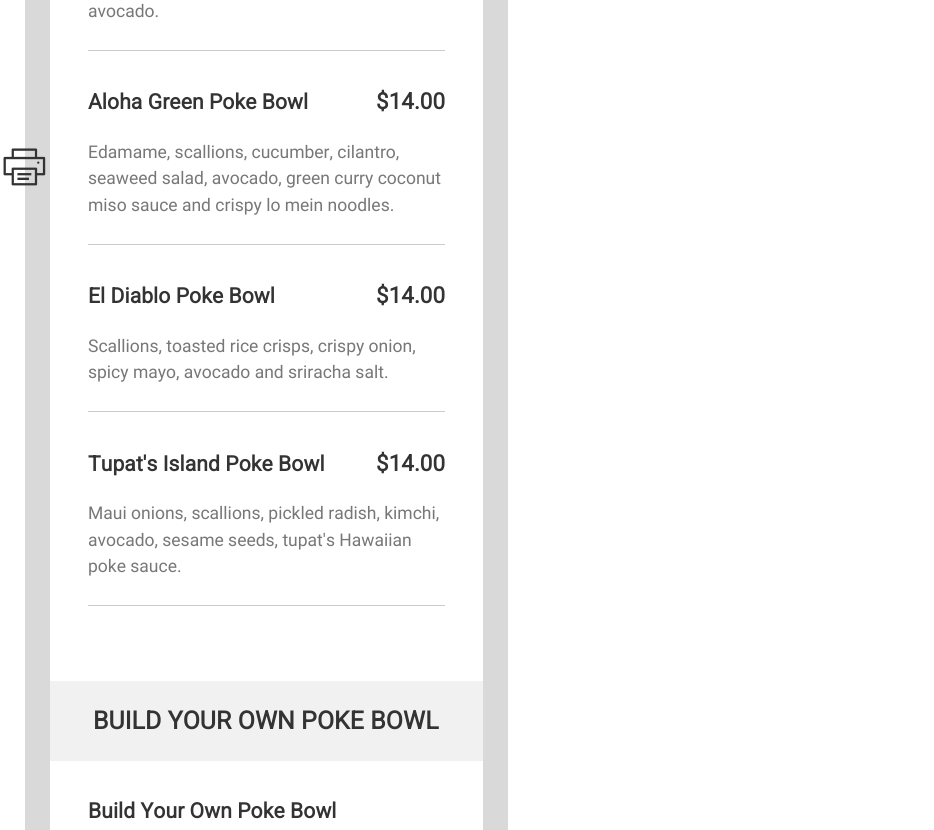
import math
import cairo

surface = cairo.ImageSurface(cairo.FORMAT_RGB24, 934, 830)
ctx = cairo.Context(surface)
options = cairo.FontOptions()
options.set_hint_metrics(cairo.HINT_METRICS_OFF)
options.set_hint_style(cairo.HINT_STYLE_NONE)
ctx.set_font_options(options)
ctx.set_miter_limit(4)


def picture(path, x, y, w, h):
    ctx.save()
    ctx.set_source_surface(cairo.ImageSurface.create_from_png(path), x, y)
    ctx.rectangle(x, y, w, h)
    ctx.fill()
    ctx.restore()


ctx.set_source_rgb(1, 1, 1)
ctx.paint()
ctx.rectangle(37.5, -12.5, 458, 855)
ctx.set_source_rgb(0.851, 0.851, 0.851)
ctx.set_line_width(25)
ctx.stroke()
picture("img1.png", 3, 148, 43, 38)
ctx.select_font_face("Roboto")
ctx.set_font_size(17.5)
ctx.set_source_rgb(0.467, 0.467, 0.467)
ctx.move_to(88, 17)
ctx.show_text("avocado.")
ctx.set_source_rgb(0.8, 0.8, 0.8)
ctx.rectangle(88, 50, 357, 1)
ctx.fill()
ctx.select_font_face("Roboto", cairo.FONT_SLANT_NORMAL, cairo.FONT_WEIGHT_BOLD)
ctx.set_font_size(21.25)
ctx.set_source_rgb(0.2, 0.2, 0.2)
ctx.move_to(88, 109)
ctx.show_text("Aloha Green Poke Bowl")
ctx.set_font_size(22.5)
ctx.move_to(376, 109)
ctx.show_text("$14.00")
ctx.select_font_face("Roboto")
ctx.set_font_size(17.5)
ctx.set_source_rgb(0.467, 0.467, 0.467)
ctx.move_to(88, 158)
ctx.show_text("Edamame, scallions, cucumber, cilantro,")
ctx.move_to(88, 184)
ctx.show_text("seaweed salad, avocado, green curry coconut")
ctx.move_to(88, 211)
ctx.show_text("miso sauce and crispy lo mein noodles.")
ctx.set_source_rgb(0.8, 0.8, 0.8)
ctx.rectangle(88, 244, 357, 1)
ctx.fill()
ctx.select_font_face("Roboto", cairo.FONT_SLANT_NORMAL, cairo.FONT_WEIGHT_BOLD)
ctx.set_font_size(21.25)
ctx.set_source_rgb(0.2, 0.2, 0.2)
ctx.move_to(88, 303)
ctx.show_text("El Diablo Poke Bowl")
ctx.set_font_size(22.5)
ctx.move_to(376, 303)
ctx.show_text("$14.00")
ctx.select_font_face("Roboto")
ctx.set_font_size(17.5)
ctx.set_source_rgb(0.467, 0.467, 0.467)
ctx.move_to(88, 352)
ctx.show_text("Scallions, toasted rice crisps, crispy onion,")
ctx.move_to(88, 378)
ctx.show_text("spicy mayo, avocado and sriracha salt.")
ctx.set_source_rgb(0.8, 0.8, 0.8)
ctx.rectangle(88, 411, 357, 1)
ctx.fill()
ctx.select_font_face("Roboto", cairo.FONT_SLANT_NORMAL, cairo.FONT_WEIGHT_BOLD)
ctx.set_font_size(21.25)
ctx.set_source_rgb(0.2, 0.2, 0.2)
ctx.move_to(88, 471)
ctx.show_text("Tupat's Island Poke Bowl")
ctx.set_font_size(22.5)
ctx.move_to(376, 471)
ctx.show_text("$14.00")
ctx.select_font_face("Roboto")
ctx.set_font_size(17.5)
ctx.set_source_rgb(0.467, 0.467, 0.467)
ctx.move_to(88, 519)
ctx.show_text("Maui onions, scallions, pickled radish, kimchi,")
ctx.move_to(88, 546)
ctx.show_text("avocado, sesame seeds, tupat's Hawaiian")
ctx.move_to(88, 572)
ctx.show_text("poke sauce.")
ctx.set_source_rgb(0.8, 0.8, 0.8)
ctx.rectangle(88, 605, 357, 1)
ctx.fill()
ctx.set_source_rgb(0.945, 0.945, 0.945)
ctx.rectangle(50, 681, 433, 80)
ctx.fill()
ctx.select_font_face("Roboto", cairo.FONT_SLANT_NORMAL, cairo.FONT_WEIGHT_BOLD)
ctx.set_font_size(25)
ctx.set_source_rgb(0.2, 0.2, 0.2)
ctx.move_to(93, 729)
ctx.show_text("BUILD YOUR OWN POKE BOWL")
ctx.set_font_size(21.25)
ctx.move_to(88, 818)
ctx.show_text("Build Your Own Poke Bowl")
surface.write_to_png("page.png")
